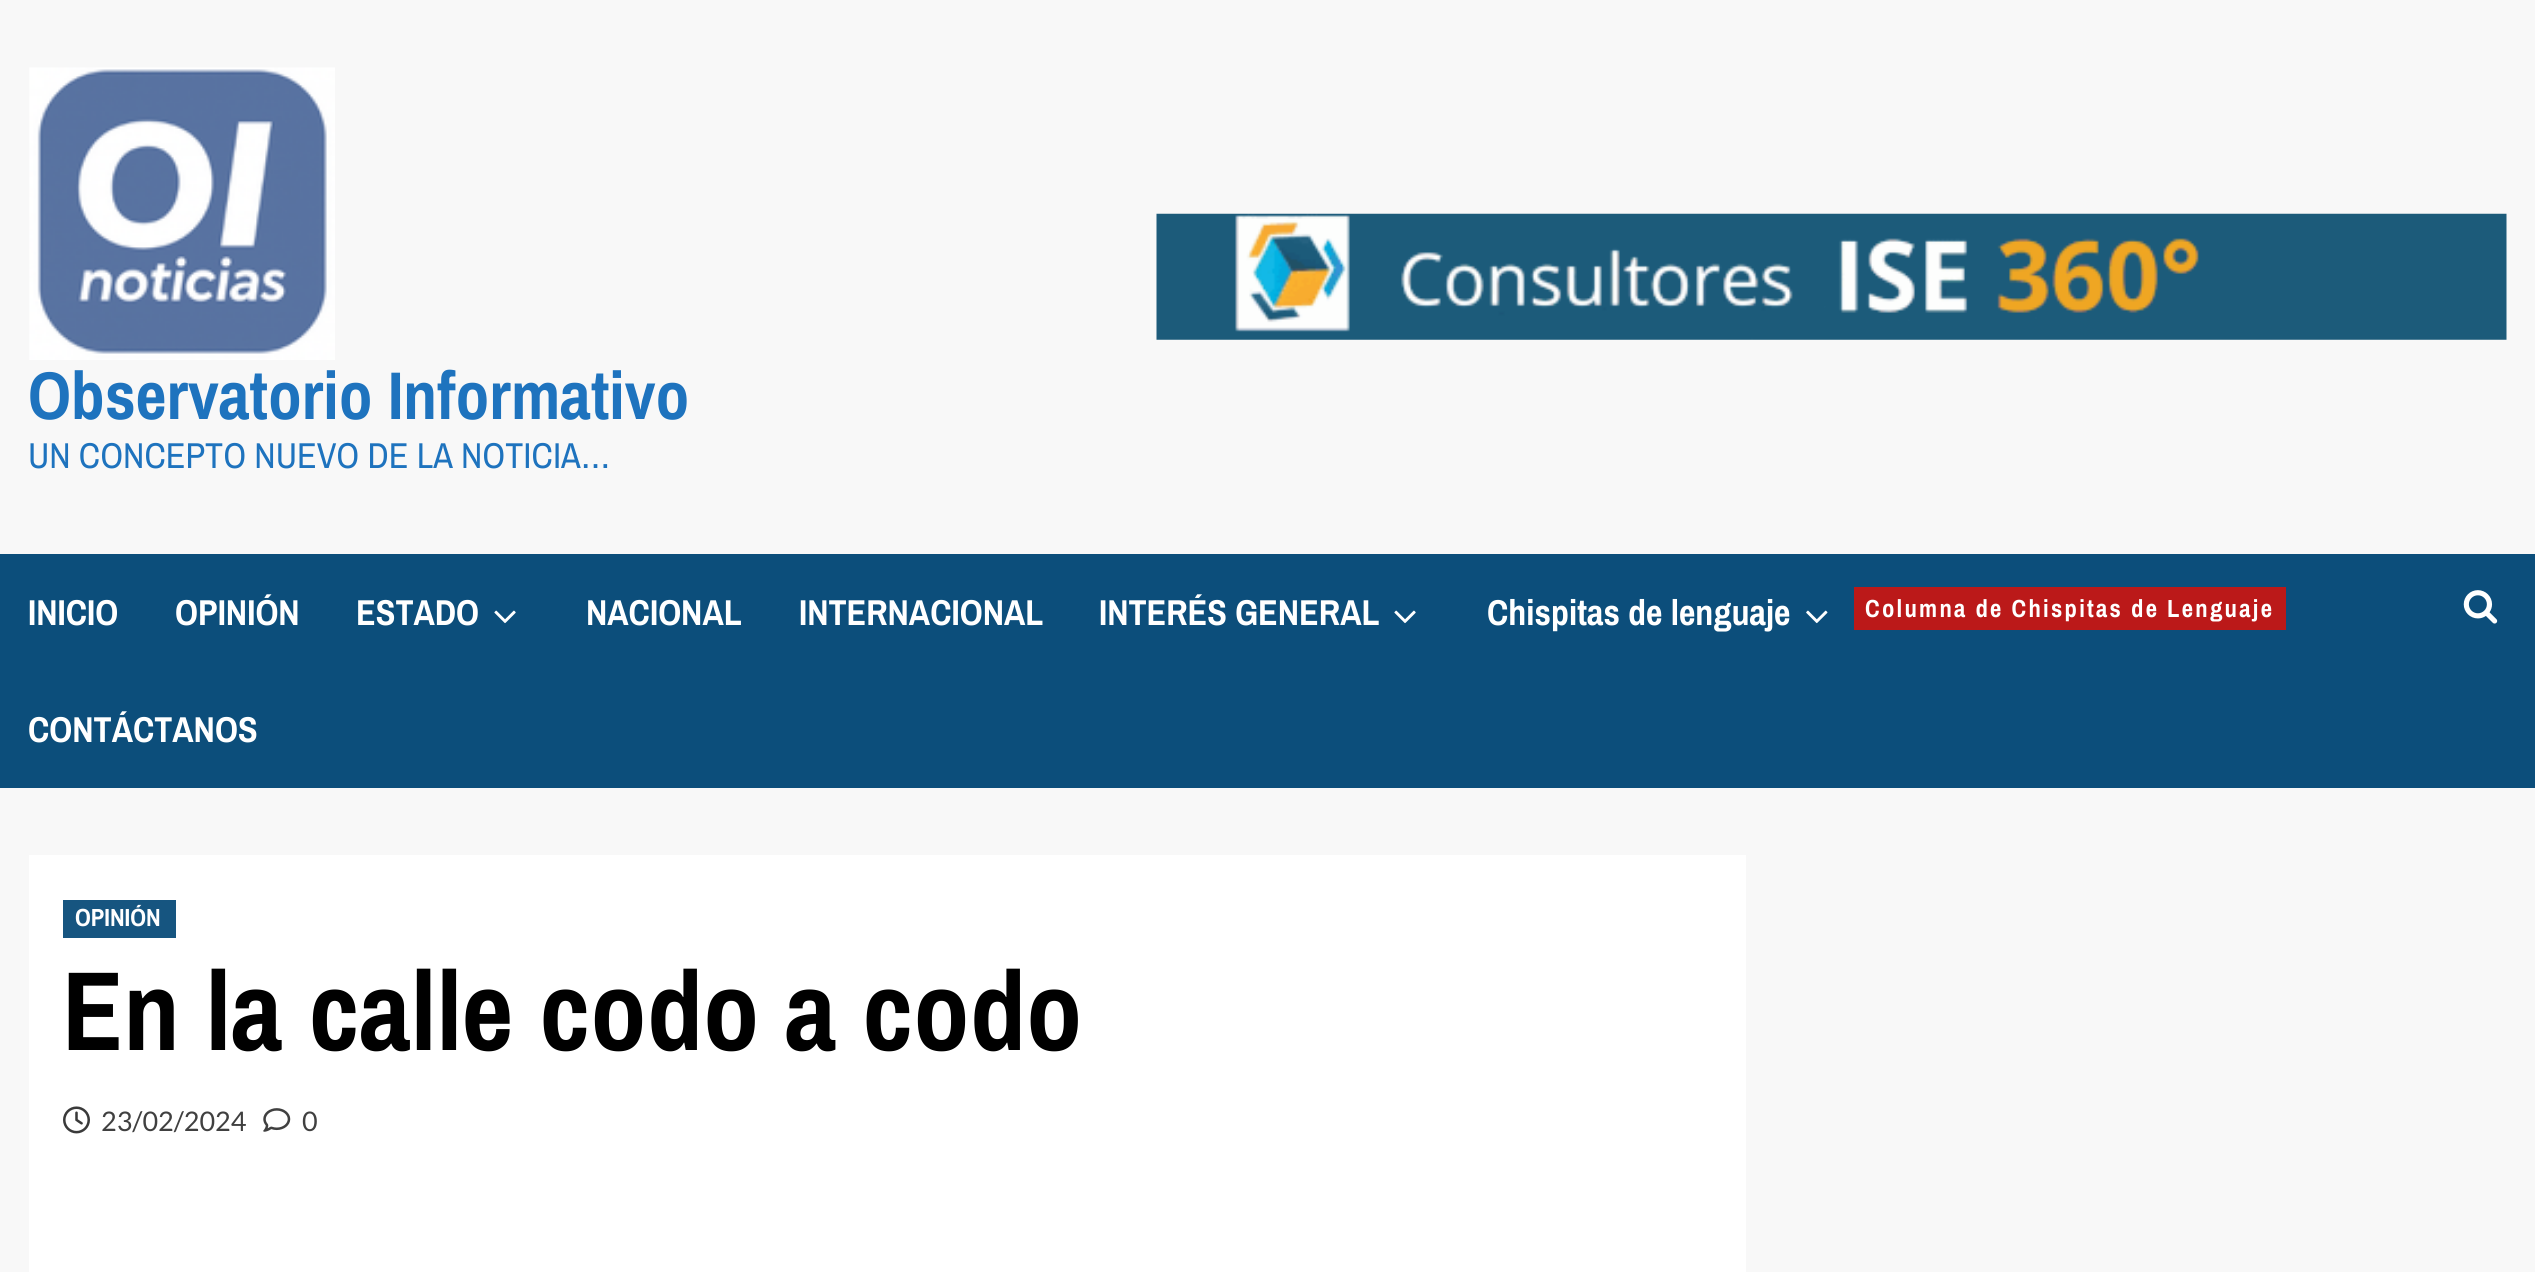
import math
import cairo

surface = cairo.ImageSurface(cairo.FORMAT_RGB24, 2535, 1272)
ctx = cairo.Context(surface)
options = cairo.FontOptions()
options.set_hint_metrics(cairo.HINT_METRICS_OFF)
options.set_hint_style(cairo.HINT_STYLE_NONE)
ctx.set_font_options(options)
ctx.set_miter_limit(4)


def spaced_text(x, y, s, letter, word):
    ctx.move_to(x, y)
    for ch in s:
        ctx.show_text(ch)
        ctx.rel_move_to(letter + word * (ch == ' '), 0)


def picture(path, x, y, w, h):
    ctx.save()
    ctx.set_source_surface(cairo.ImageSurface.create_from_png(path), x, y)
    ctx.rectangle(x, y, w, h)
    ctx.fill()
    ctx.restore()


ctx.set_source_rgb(0.969, 0.969, 0.969)
ctx.paint()
picture("img1.png", 1156, 213, 1351, 127)
picture("img2.png", 29, 67, 306, 293)
ctx.select_font_face("Archivo Narrow", cairo.FONT_SLANT_NORMAL, cairo.FONT_WEIGHT_BOLD)
ctx.set_font_size(67.5)
ctx.set_source_rgb(0.118, 0.451, 0.745)
ctx.move_to(28, 419)
ctx.show_text("Observatorio Informativo")
ctx.select_font_face("Archivo Narrow")
ctx.set_font_size(36)
ctx.move_to(28, 468)
ctx.show_text("UN CONCEPTO NUEVO DE LA NOTICIA…")
ctx.set_source_rgb(0.047, 0.306, 0.482)
ctx.rectangle(0, 554, 2535, 234)
ctx.fill()
ctx.select_font_face("Archivo Narrow", cairo.FONT_SLANT_NORMAL, cairo.FONT_WEIGHT_BOLD)
ctx.set_source_rgb(1, 1, 1)
ctx.move_to(28, 625)
ctx.show_text("INICIO")
ctx.move_to(175, 625)
ctx.show_text("OPINIÓN")
ctx.move_to(356, 625)
ctx.show_text("ESTADO")
picture("img3.png", 494, 610, 22, 14)
ctx.move_to(586, 625)
ctx.show_text("NACIONAL")
ctx.move_to(799, 625)
ctx.show_text("INTERNACIONAL")
ctx.move_to(1099, 625)
ctx.show_text("INTERÉS GENERAL")
picture("img3.png", 1394, 610, 22, 14)
ctx.move_to(1487, 625)
ctx.show_text("Chispitas de lenguaje")
picture("img4.png", 1806, 610, 22, 14)
ctx.set_source_rgb(0.733, 0.098, 0.098)
ctx.rectangle(1854, 587, 432, 43)
ctx.fill()
ctx.set_font_size(24.75)
ctx.set_source_rgb(1, 1, 1)
spaced_text(1865, 617, "Columna de Chispitas de Lenguaje", 2.25, 0)
ctx.set_font_size(36)
ctx.move_to(28, 742)
ctx.show_text("CONTÁCTANOS")
picture("img5.png", 2463, 590, 35, 34)
ctx.rectangle(29, 855, 1717, 417)
ctx.fill()
ctx.set_source_rgb(0.086, 0.333, 0.502)
ctx.rectangle(63, 900, 113, 38)
ctx.fill()
ctx.set_font_size(24.75)
ctx.set_source_rgb(1, 1, 1)
ctx.move_to(75, 926)
ctx.show_text("OPINIÓN")
ctx.set_font_size(112.5)
ctx.set_source_rgb(0, 0, 0)
ctx.move_to(62, 1050)
ctx.show_text("En la calle codo a codo")
picture("img6.png", 63, 1106, 27, 28)
ctx.select_font_face("Lato")
ctx.set_font_size(27)
ctx.set_source_rgb(0.251, 0.251, 0.251)
ctx.move_to(101, 1131)
ctx.show_text("23/02/2024")
picture("img7.png", 263, 1108, 28, 24)
ctx.move_to(302, 1131)
ctx.show_text("0")
surface.write_to_png("page.png")
